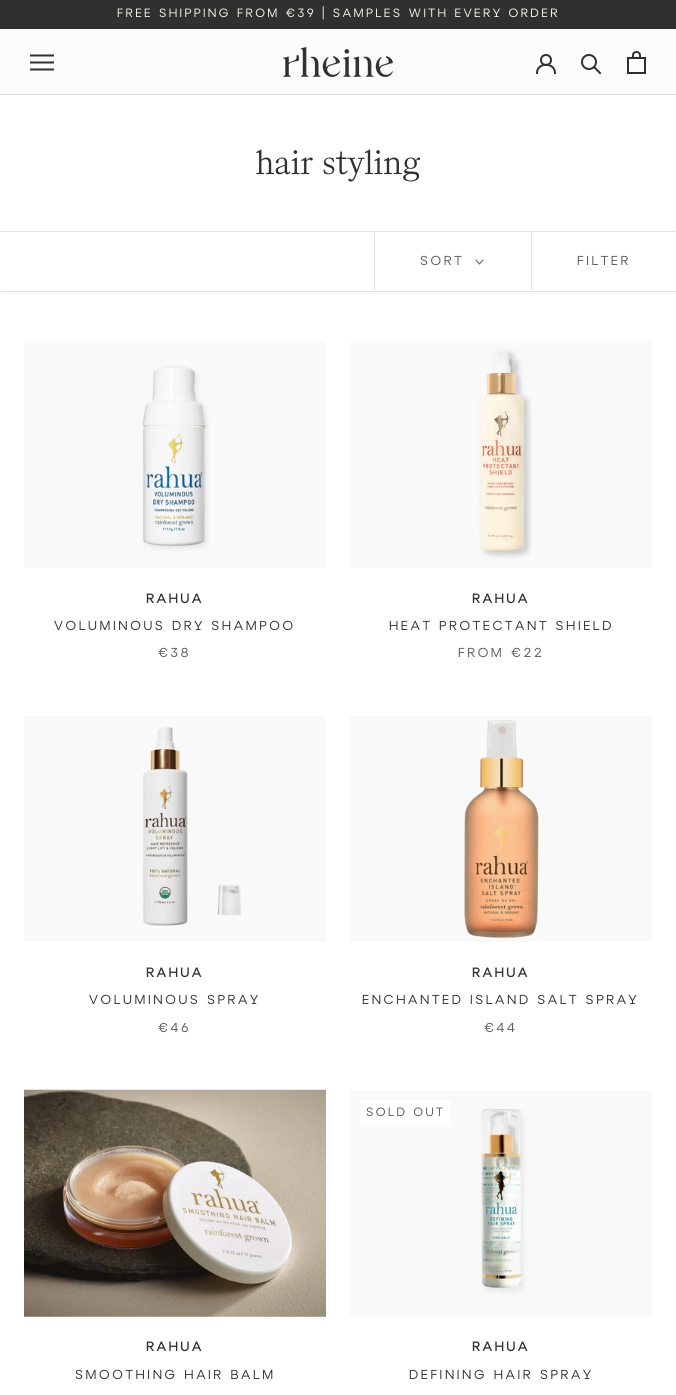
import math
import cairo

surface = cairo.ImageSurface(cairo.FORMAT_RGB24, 676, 1395)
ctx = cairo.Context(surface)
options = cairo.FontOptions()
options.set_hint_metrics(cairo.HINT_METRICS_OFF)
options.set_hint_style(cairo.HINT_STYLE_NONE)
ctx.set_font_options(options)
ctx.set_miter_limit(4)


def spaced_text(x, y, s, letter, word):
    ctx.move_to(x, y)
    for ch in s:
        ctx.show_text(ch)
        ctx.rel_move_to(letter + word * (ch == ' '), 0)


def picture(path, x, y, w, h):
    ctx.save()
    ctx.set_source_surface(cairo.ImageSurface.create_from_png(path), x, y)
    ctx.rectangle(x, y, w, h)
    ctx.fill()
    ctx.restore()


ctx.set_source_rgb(1, 1, 1)
ctx.paint()
ctx.set_source_rgb(0.188, 0.188, 0.188)
ctx.rectangle(0, 0, 676, 29)
ctx.fill()
ctx.select_font_face("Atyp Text")
ctx.set_font_size(12)
ctx.set_source_rgb(0.988, 0.976, 0.941)
spaced_text(117, 17, "FREE SHIPPING FROM €39 | SAMPLES WITH EVERY ORDER", 2.4, 0)
ctx.set_source_rgb(0.992, 0.988, 0.984)
ctx.rectangle(0, 29, 676, 65)
ctx.fill()
ctx.set_source_rgb(0.871, 0.867, 0.867)
ctx.rectangle(0, 94, 676, 1)
ctx.fill()
picture("img1.png", 30, 54, 24, 17)
picture("img2.png", 283, 47, 110, 30)
ctx.new_path()
ctx.move_to(537, 73)
ctx.curve_to(537, 62, 555, 62, 555, 73)
ctx.set_source_rgb(0.188, 0.188, 0.188)
ctx.set_line_cap(cairo.LINE_CAP_SQUARE)
ctx.stroke()
ctx.arc(546, 60, 5, 0, 2 * math.pi)
ctx.set_line_cap(cairo.LINE_CAP_BUTT)
ctx.stroke()
ctx.new_path()
ctx.move_to(600, 73)
ctx.line_to(594.5, 67.5)
ctx.set_line_cap(cairo.LINE_CAP_SQUARE)
ctx.stroke()
ctx.arc(589, 62, 7, 0, 2 * math.pi)
ctx.set_line_cap(cairo.LINE_CAP_BUTT)
ctx.stroke()
picture("img3.png", 627, 51, 19, 23)
ctx.select_font_face("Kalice")
ctx.set_font_size(30)
ctx.move_to(255, 174)
ctx.show_text("hair styling")
ctx.set_source_rgb(0.878, 0.878, 0.878)
ctx.new_path()
ctx.move_to(-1, 231)
ctx.line_to(-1, 290)
ctx.line_to(0, 290)
ctx.line_to(0, 232)
ctx.line_to(675, 232)
ctx.line_to(675, 231)
ctx.close_path()
ctx.fill()
ctx.new_path()
ctx.move_to(1, 291)
ctx.line_to(1, 292)
ctx.line_to(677, 292)
ctx.line_to(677, 233)
ctx.line_to(676, 233)
ctx.line_to(676, 291)
ctx.close_path()
ctx.fill()
ctx.rectangle(374, 233, 1, 57)
ctx.fill()
ctx.select_font_face("Atyp Text")
ctx.set_font_size(13)
ctx.set_source_rgb(0.349, 0.349, 0.349)
spaced_text(420, 265, "SORT", 2.6, 0)
ctx.new_path()
ctx.move_to(483, 260)
ctx.line_to(479.5, 264)
ctx.line_to(476, 260)
ctx.set_line_width(1)
ctx.set_line_cap(cairo.LINE_CAP_SQUARE)
ctx.stroke()
ctx.set_source_rgb(0.878, 0.878, 0.878)
ctx.rectangle(531, 233, 1, 57)
ctx.fill()
ctx.set_source_rgb(0.349, 0.349, 0.349)
spaced_text(577, 265, "FILTER", 2.6, 0)
ctx.set_source_rgb(0.976, 0.976, 0.976)
ctx.rectangle(24, 341, 302, 227)
ctx.fill()
picture("img4.png", 142, 365, 68, 186)
ctx.select_font_face("Atyp Text", cairo.FONT_SLANT_NORMAL, cairo.FONT_WEIGHT_BOLD)
ctx.set_source_rgb(0.188, 0.188, 0.188)
spaced_text(146, 603, "RAHUA", 2.6, 0)
ctx.select_font_face("Atyp Text")
spaced_text(54, 630, "VOLUMINOUS DRY SHAMPOO", 2.6, 0)
ctx.set_source_rgb(0.349, 0.349, 0.349)
spaced_text(158, 657, "€38", 2.6, 0)
ctx.set_source_rgb(0.976, 0.976, 0.976)
ctx.rectangle(350, 341, 302, 227)
ctx.fill()
picture("img5.png", 478, 349, 54, 210)
ctx.select_font_face("Atyp Text", cairo.FONT_SLANT_NORMAL, cairo.FONT_WEIGHT_BOLD)
ctx.set_source_rgb(0.188, 0.188, 0.188)
spaced_text(472, 603, "RAHUA", 2.6, 0)
ctx.select_font_face("Atyp Text")
spaced_text(389, 630, "HEAT PROTECTANT SHIELD", 2.6, 0)
ctx.set_source_rgb(0.349, 0.349, 0.349)
spaced_text(458, 657, "FROM €22", 2.6, 0)
ctx.set_source_rgb(0.976, 0.976, 0.976)
ctx.rectangle(24, 716, 302, 226)
ctx.fill()
picture("img6.png", 143, 727, 99, 199)
ctx.select_font_face("Atyp Text", cairo.FONT_SLANT_NORMAL, cairo.FONT_WEIGHT_BOLD)
ctx.set_source_rgb(0.188, 0.188, 0.188)
spaced_text(146, 977, "RAHUA", 2.6, 0)
ctx.select_font_face("Atyp Text")
spaced_text(89, 1004, "VOLUMINOUS SPRAY", 2.6, 0)
ctx.set_source_rgb(0.349, 0.349, 0.349)
spaced_text(158, 1032, "€46", 2.6, 0)
ctx.set_source_rgb(0.976, 0.976, 0.976)
ctx.rectangle(350, 716, 302, 226)
ctx.fill()
picture("img7.png", 464, 720, 75, 219)
ctx.select_font_face("Atyp Text", cairo.FONT_SLANT_NORMAL, cairo.FONT_WEIGHT_BOLD)
ctx.set_source_rgb(0.188, 0.188, 0.188)
spaced_text(472, 977, "RAHUA", 2.6, 0)
ctx.select_font_face("Atyp Text")
spaced_text(362, 1004, "ENCHANTED ISLAND SALT SPRAY", 2.6, 0)
ctx.set_source_rgb(0.349, 0.349, 0.349)
spaced_text(484, 1032, "€44", 2.6, 0)
picture("img8.png", 24, 1089, 302, 228)
ctx.select_font_face("Atyp Text", cairo.FONT_SLANT_NORMAL, cairo.FONT_WEIGHT_BOLD)
ctx.set_source_rgb(0.188, 0.188, 0.188)
spaced_text(146, 1351, "RAHUA", 2.6, 0)
ctx.select_font_face("Atyp Text")
spaced_text(75, 1379, "SMOOTHING HAIR BALM", 2.6, 0)
ctx.set_source_rgb(0.976, 0.976, 0.976)
ctx.rectangle(350, 1090, 302, 19)
ctx.fill()
picture("img9.png", 350, 1109, 302, 208)
ctx.set_source_rgb(1, 1, 1)
ctx.rectangle(360, 1100, 91, 27)
ctx.fill()
ctx.set_font_size(12)
ctx.set_source_rgb(0.349, 0.349, 0.349)
spaced_text(366, 1116, "SOLD OUT", 2.4, 0)
ctx.select_font_face("Atyp Text", cairo.FONT_SLANT_NORMAL, cairo.FONT_WEIGHT_BOLD)
ctx.set_font_size(13)
ctx.set_source_rgb(0.188, 0.188, 0.188)
spaced_text(472, 1351, "RAHUA", 2.6, 0)
ctx.select_font_face("Atyp Text")
spaced_text(409, 1379, "DEFINING HAIR SPRAY", 2.6, 0)
surface.write_to_png("page.png")
